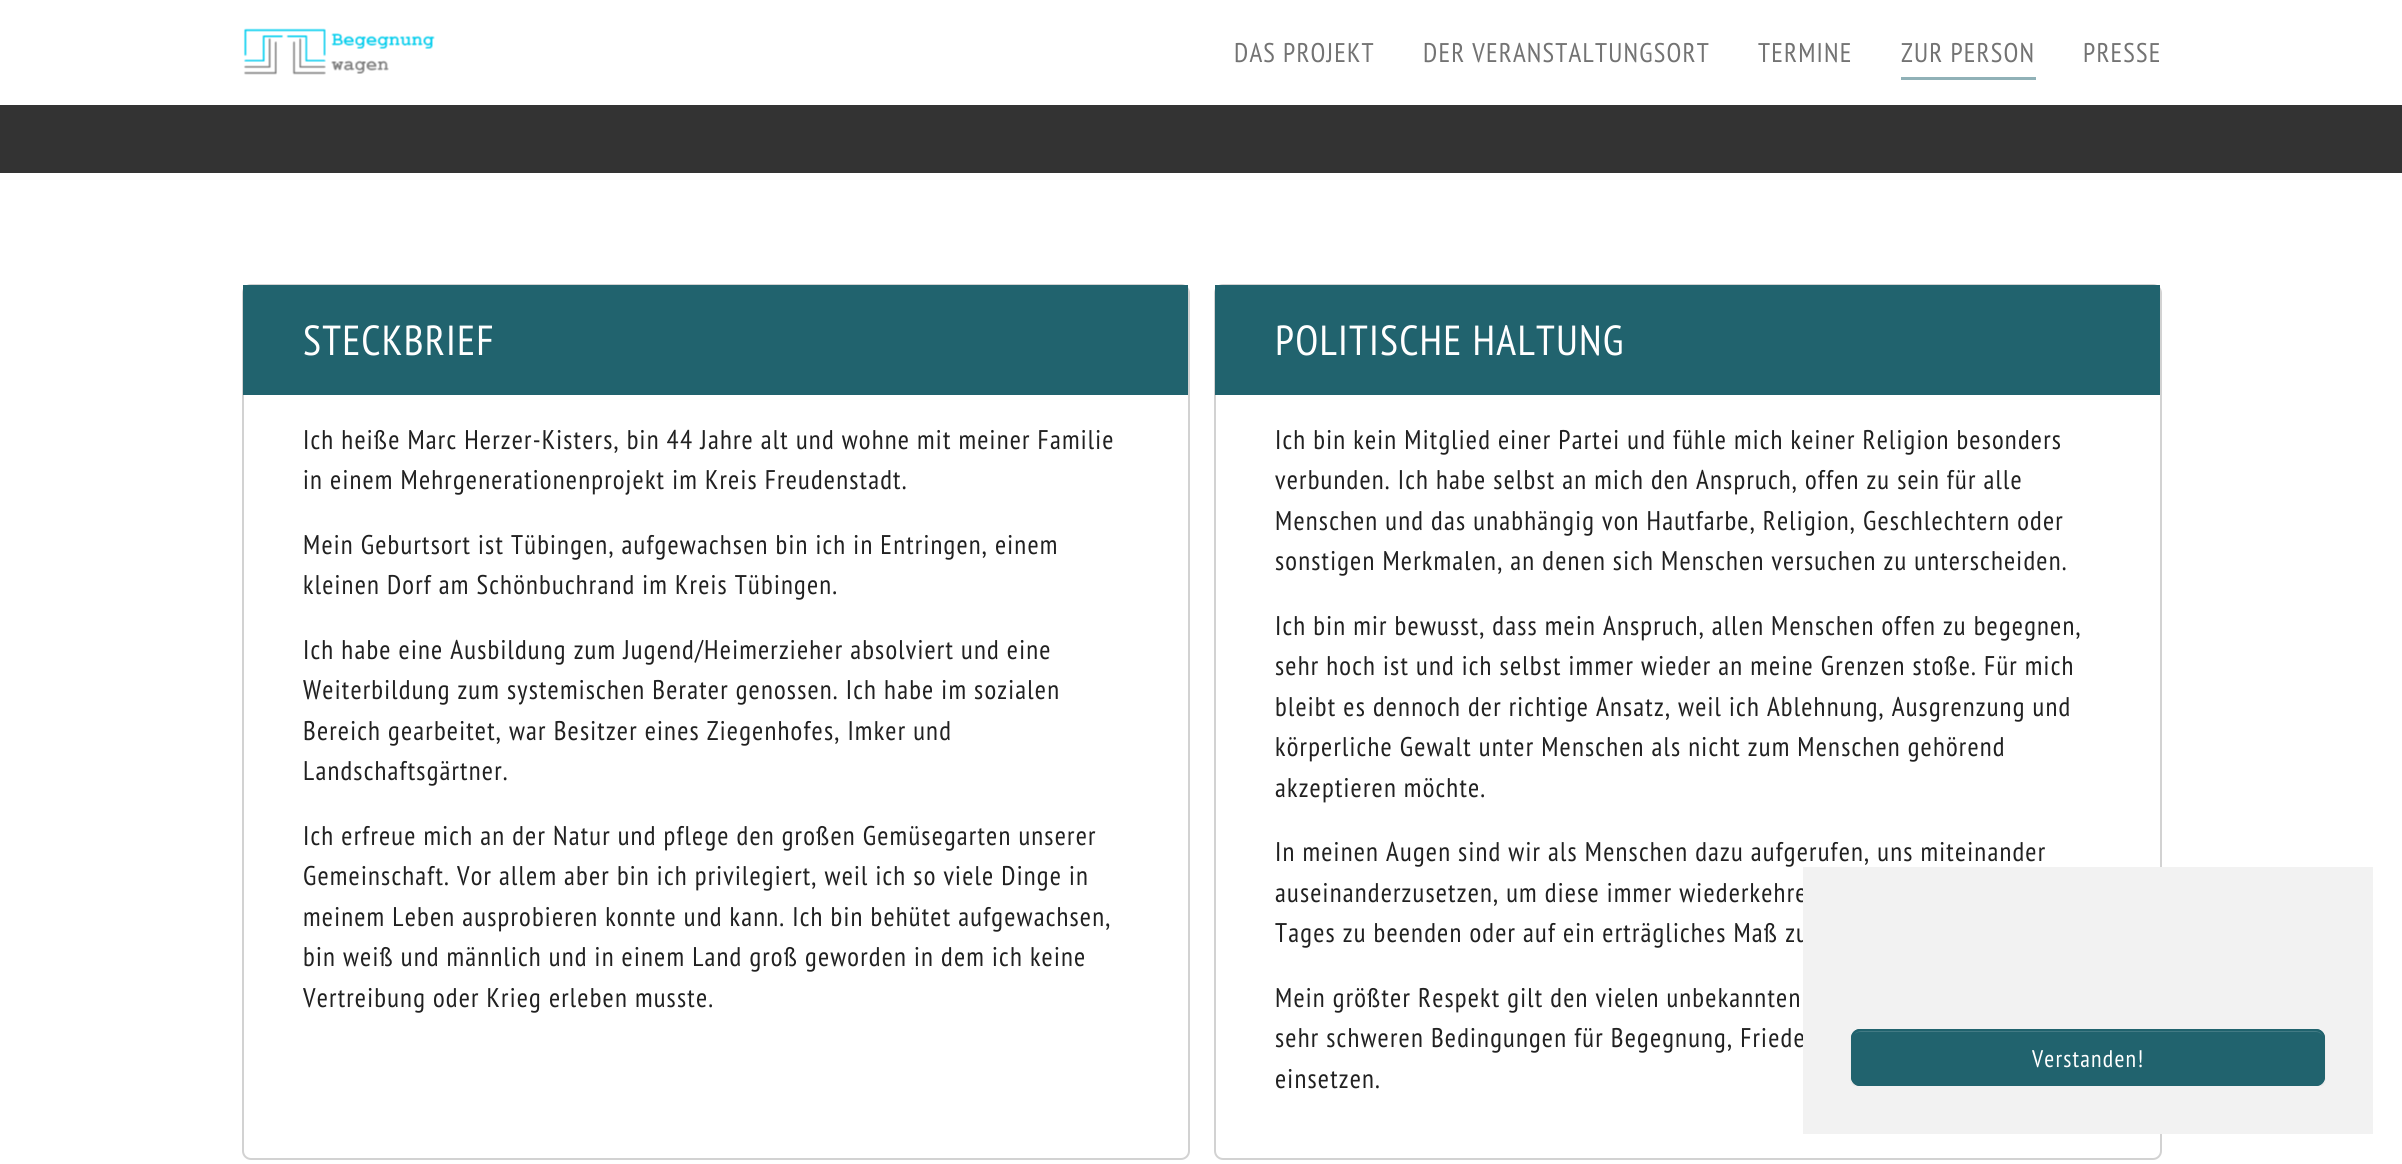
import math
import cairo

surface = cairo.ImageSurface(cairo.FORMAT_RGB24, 2402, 1164)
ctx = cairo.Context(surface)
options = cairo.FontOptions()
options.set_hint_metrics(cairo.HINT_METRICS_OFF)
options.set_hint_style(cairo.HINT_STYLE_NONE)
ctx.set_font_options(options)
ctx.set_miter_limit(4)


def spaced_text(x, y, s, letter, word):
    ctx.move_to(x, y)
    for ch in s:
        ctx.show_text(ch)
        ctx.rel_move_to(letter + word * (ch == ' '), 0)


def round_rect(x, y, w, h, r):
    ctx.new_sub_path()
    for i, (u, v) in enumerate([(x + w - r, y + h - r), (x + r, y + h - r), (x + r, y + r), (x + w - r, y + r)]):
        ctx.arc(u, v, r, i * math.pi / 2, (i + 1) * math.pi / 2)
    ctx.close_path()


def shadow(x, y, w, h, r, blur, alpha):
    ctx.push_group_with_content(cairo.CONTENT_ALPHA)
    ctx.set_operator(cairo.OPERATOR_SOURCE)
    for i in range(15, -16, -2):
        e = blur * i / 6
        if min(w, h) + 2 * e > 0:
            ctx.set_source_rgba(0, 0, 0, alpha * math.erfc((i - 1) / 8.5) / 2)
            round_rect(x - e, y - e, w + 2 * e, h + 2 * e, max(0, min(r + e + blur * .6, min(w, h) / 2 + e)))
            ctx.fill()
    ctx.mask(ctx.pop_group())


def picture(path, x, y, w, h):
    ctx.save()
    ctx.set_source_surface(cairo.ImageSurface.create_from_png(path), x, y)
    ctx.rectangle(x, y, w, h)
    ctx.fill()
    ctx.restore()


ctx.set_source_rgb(1, 1, 1)
ctx.paint()
picture("img1.png", 243, 28, 192, 47)
ctx.select_font_face("PT Sans Narrow")
ctx.set_font_size(27)
ctx.set_source_rgb(0.451, 0.451, 0.451)
spaced_text(1234, 62, "DAS PROJEKT", 1.2, 0)
spaced_text(1423, 62, "DER VERANSTALTUNGSORT", 1.2, 0)
spaced_text(1758, 62, "TERMINE", 1.2, 0)
spaced_text(1901, 62, "ZUR PERSON", 1.2, 0)
ctx.set_source_rgb(0.565, 0.694, 0.718)
ctx.rectangle(1901, 77, 135, 3)
ctx.fill()
ctx.set_source_rgb(0.451, 0.451, 0.451)
spaced_text(2083, 62, "PRESSE", 1.2, 0)
ctx.set_source_rgb(0.2, 0.2, 0.2)
ctx.rectangle(0, 105, 2402, 68)
ctx.fill()
round_rect(243, 285, 946, 874, 8)
ctx.set_source_rgb(0.824, 0.824, 0.824)
ctx.stroke()
ctx.set_source_rgb(0.129, 0.388, 0.431)
ctx.rectangle(243, 285, 945, 110)
ctx.fill()
ctx.set_font_size(42)
ctx.set_source_rgb(1, 1, 1)
spaced_text(303, 355, "STECKBRIEF", 1.2, 0)
ctx.set_font_size(27)
ctx.set_source_rgb(0.129, 0.129, 0.129)
spaced_text(303, 449, "Ich heiße Marc Herzer-Kisters, bin 44 Jahre alt und wohne mit meiner Familie", 1.2, 0)
spaced_text(303, 489, "in einem Mehrgenerationenprojekt im Kreis Freudenstadt.", 1.2, 0)
spaced_text(303, 554, "Mein Geburtsort ist Tübingen, aufgewachsen bin ich in Entringen, einem", 1.2, 0)
spaced_text(303, 594, "kleinen Dorf am Schönbuchrand im Kreis Tübingen.", 1.2, 0)
spaced_text(303, 659, "Ich habe eine Ausbildung zum Jugend/Heimerzieher absolviert und eine", 1.2, 0)
spaced_text(303, 699, "Weiterbildung zum systemischen Berater genossen. Ich habe im sozialen", 1.2, 0)
spaced_text(303, 740, "Bereich gearbeitet, war Besitzer eines Ziegenhofes, Imker und", 1.2, 0)
spaced_text(303, 780, "Landschaftsgärtner.", 1.2, 0)
spaced_text(303, 845, "Ich erfreue mich an der Natur und pflege den großen Gemüsegarten unserer", 1.2, 0)
spaced_text(303, 885, "Gemeinschaft. Vor allem aber bin ich privilegiert, weil ich so viele Dinge in", 1.2, 0)
spaced_text(303, 926, "meinem Leben ausprobieren konnte und kann. Ich bin behütet aufgewachsen,", 1.2, 0)
spaced_text(303, 966, "bin weiß und männlich und in einem Land groß geworden in dem ich keine", 1.2, 0)
spaced_text(303, 1007, "Vertreibung oder Krieg erleben musste.", 1.2, 0)
round_rect(1215, 285, 946, 874, 8)
ctx.set_source_rgb(0.824, 0.824, 0.824)
ctx.stroke()
ctx.set_source_rgb(0.129, 0.388, 0.431)
ctx.rectangle(1215, 285, 945, 110)
ctx.fill()
ctx.set_font_size(42)
ctx.set_source_rgb(1, 1, 1)
spaced_text(1275, 355, "POLITISCHE HALTUNG", 1.2, 0)
ctx.set_font_size(27)
ctx.set_source_rgb(0.129, 0.129, 0.129)
spaced_text(1275, 449, "Ich bin kein Mitglied einer Partei und fühle mich keiner Religion besonders", 1.2, 0)
spaced_text(1275, 489, "verbunden. Ich habe selbst an mich den Anspruch, offen zu sein für alle", 1.2, 0)
spaced_text(1275, 530, "Menschen und das unabhängig von Hautfarbe, Religion, Geschlechtern oder", 1.2, 0)
spaced_text(1275, 570, "sonstigen Merkmalen, an denen sich Menschen versuchen zu unterscheiden.", 1.2, 0)
spaced_text(1275, 635, "Ich bin mir bewusst, dass mein Anspruch, allen Menschen offen zu begegnen,", 1.2, 0)
spaced_text(1275, 675, "sehr hoch ist und ich selbst immer wieder an meine Grenzen stoße. Für mich", 1.2, 0)
spaced_text(1275, 716, "bleibt es dennoch der richtige Ansatz, weil ich Ablehnung, Ausgrenzung und", 1.2, 0)
spaced_text(1275, 756, "körperliche Gewalt unter Menschen als nicht zum Menschen gehörend", 1.2, 0)
spaced_text(1275, 797, "akzeptieren möchte.", 1.2, 0)
spaced_text(1275, 861, "In meinen Augen sind wir als Menschen dazu aufgerufen, uns miteinander", 1.2, 0)
spaced_text(1275, 902, "auseinanderzusetzen, um diese immer wiederkehre", 1.2, 0)
spaced_text(1275, 942, "Tages zu beenden oder auf ein erträgliches Maß zu", 1.2, 0)
spaced_text(1275, 1007, "Mein größter Respekt gilt den vielen unbekannten", 1.2, 0)
spaced_text(1275, 1047, "sehr schweren Bedingungen für Begegnung, Friede", 1.2, 0)
spaced_text(1275, 1088, "einsetzen.", 1.2, 0)
ctx.set_source_rgb(0.949, 0.949, 0.949)
ctx.rectangle(1803, 867, 570, 267)
ctx.fill()
ctx.save()
ctx.rectangle(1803, 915, 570, 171)
ctx.clip()
ctx.set_source_rgb(0, 0, 0)
shadow(1851, 1031, 474, 57, 9, 1, 0.07)
ctx.restore()
ctx.set_source_rgb(0.129, 0.388, 0.431)
round_rect(1851, 1029, 474, 57, 9)
ctx.fill()
ctx.set_source_rgb(0.259, 0.478, 0.518)
ctx.new_path()
ctx.move_to(1860, 1032)
ctx.line_to(2316, 1032)
ctx.curve_to(2320, 1032, 2324, 1035, 2324, 1040)
ctx.line_to(2324, 1039)
ctx.curve_to(2324, 1035, 2320, 1031, 2316, 1031)
ctx.line_to(1861, 1031)
ctx.curve_to(1859, 1031, 1856, 1032, 1855, 1034)
ctx.curve_to(1856, 1033, 1858, 1032, 1860, 1032)
ctx.close_path()
ctx.fill()
round_rect(1852, 1030, 472, 55, 8)
ctx.set_source_rgb(0.129, 0.388, 0.431)
ctx.stroke()
ctx.set_font_size(24)
ctx.set_source_rgb(1, 1, 1)
spaced_text(2032, 1067, "Verstanden!", 1.2, 0)
surface.write_to_png("page.png")
